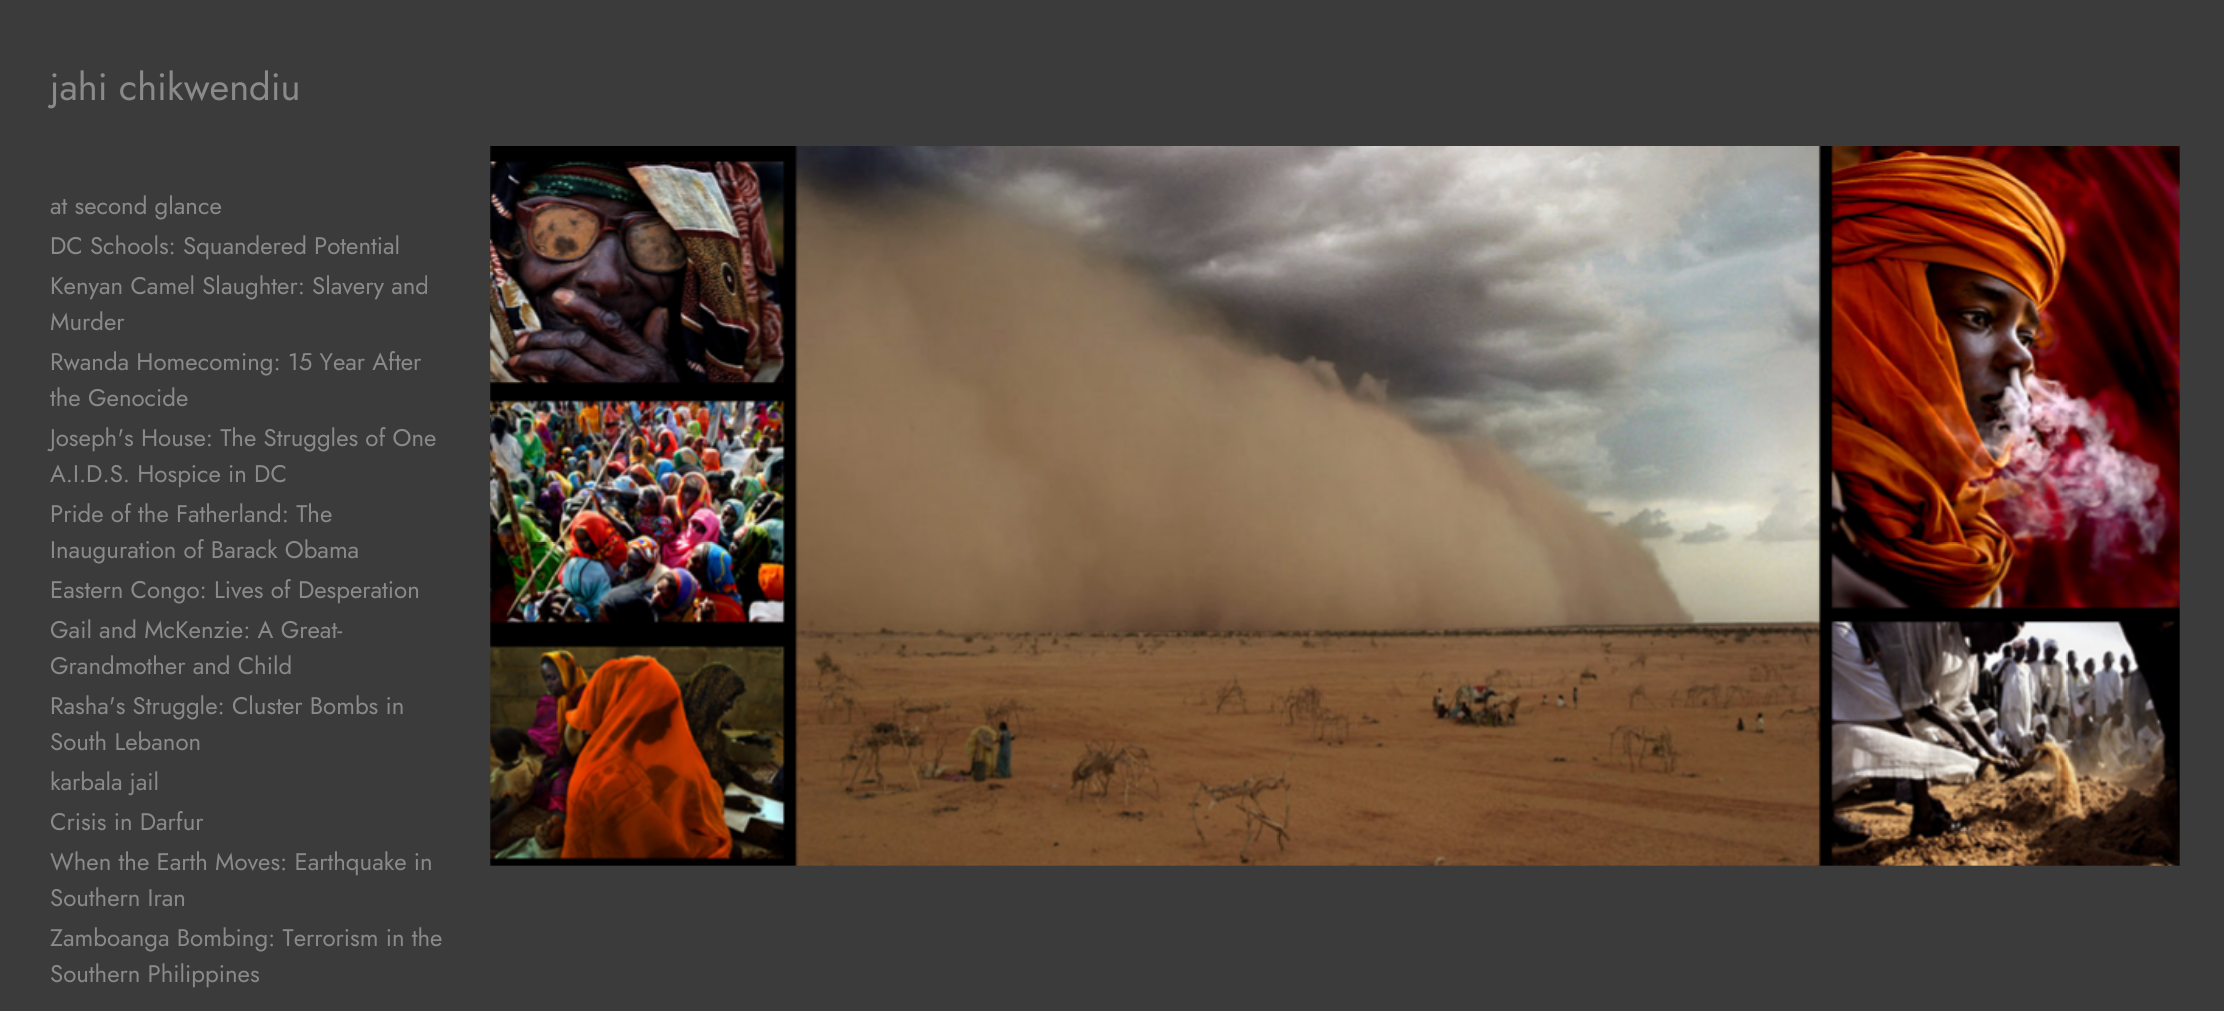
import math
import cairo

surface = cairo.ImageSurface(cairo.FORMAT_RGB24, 2224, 1011)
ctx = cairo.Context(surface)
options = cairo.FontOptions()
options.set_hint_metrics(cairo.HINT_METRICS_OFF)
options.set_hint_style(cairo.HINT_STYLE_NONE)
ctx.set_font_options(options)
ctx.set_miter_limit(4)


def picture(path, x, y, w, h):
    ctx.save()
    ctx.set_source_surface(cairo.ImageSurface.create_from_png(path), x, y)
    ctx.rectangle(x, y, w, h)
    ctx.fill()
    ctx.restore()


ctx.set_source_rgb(0.231, 0.231, 0.231)
ctx.paint()
ctx.select_font_face("Jost")
ctx.set_font_size(38)
ctx.set_source_rgb(0.541, 0.541, 0.541)
ctx.move_to(50, 100)
ctx.show_text("jahi chikwendiu")
ctx.set_font_size(24)
ctx.move_to(50, 214)
ctx.show_text("at second glance")
ctx.move_to(50, 254)
ctx.show_text("DC Schools: Squandered Potential")
ctx.move_to(50, 294)
ctx.show_text("Kenyan Camel Slaughter: Slavery and")
ctx.move_to(50, 330)
ctx.show_text("Murder")
ctx.move_to(50, 370)
ctx.show_text("Rwanda Homecoming: 15 Year After")
ctx.move_to(50, 406)
ctx.show_text("the Genocide")
ctx.move_to(50, 446)
ctx.show_text("Joseph's House: The Struggles of One")
ctx.move_to(50, 482)
ctx.show_text("A.I.D.S. Hospice in DC")
ctx.move_to(50, 522)
ctx.show_text("Pride of the Fatherland: The")
ctx.move_to(50, 558)
ctx.show_text("Inauguration of Barack Obama")
ctx.move_to(50, 598)
ctx.show_text("Eastern Congo: Lives of Desperation")
ctx.move_to(50, 638)
ctx.show_text("Gail and McKenzie: A Great-")
ctx.move_to(50, 674)
ctx.show_text("Grandmother and Child")
ctx.move_to(50, 714)
ctx.show_text("Rasha's Struggle: Cluster Bombs in")
ctx.move_to(50, 750)
ctx.show_text("South Lebanon")
ctx.move_to(50, 790)
ctx.show_text("karbala jail")
ctx.move_to(50, 830)
ctx.show_text("Crisis in Darfur")
ctx.move_to(50, 870)
ctx.show_text("When the Earth Moves: Earthquake in")
ctx.move_to(50, 906)
ctx.show_text("Southern Iran")
ctx.move_to(50, 946)
ctx.show_text("Zamboanga Bombing: Terrorism in the")
ctx.move_to(50, 982)
ctx.show_text("Southern Philippines")
picture("img1.png", 490, 146, 1690, 720)
surface.write_to_png("page.png")
